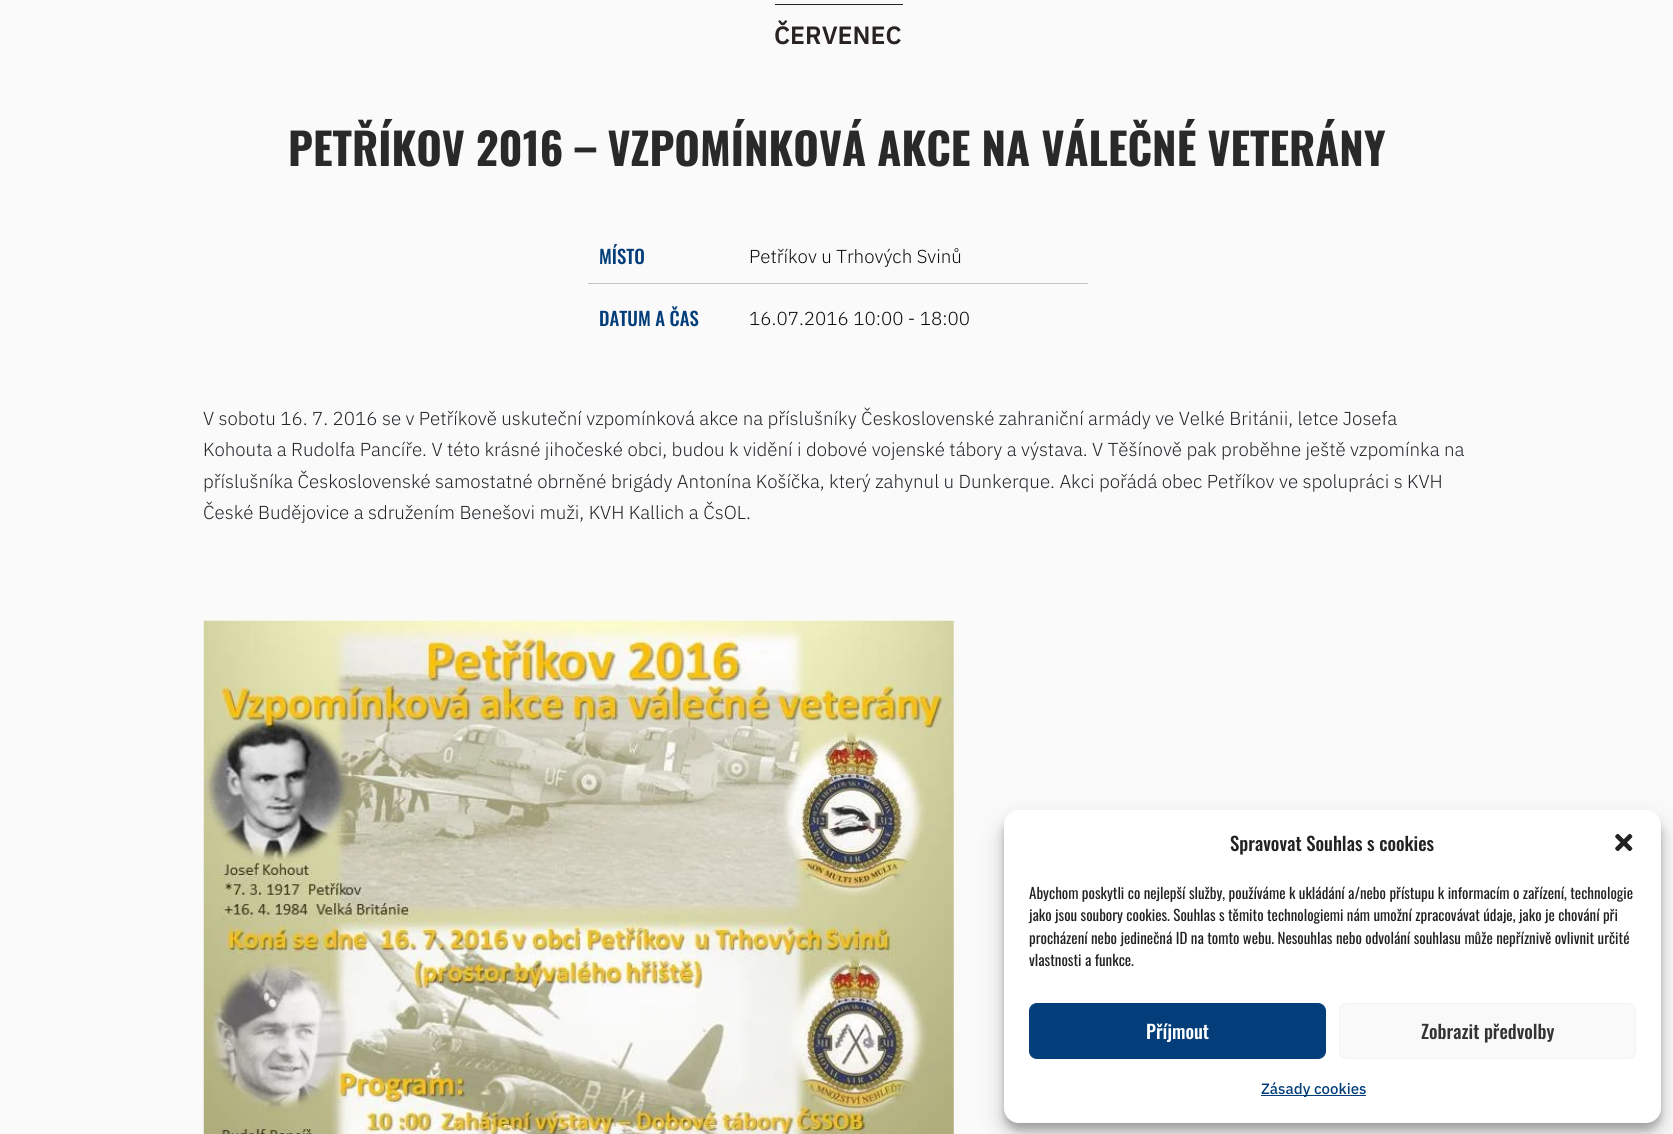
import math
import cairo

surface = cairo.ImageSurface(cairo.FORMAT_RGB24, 1673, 1134)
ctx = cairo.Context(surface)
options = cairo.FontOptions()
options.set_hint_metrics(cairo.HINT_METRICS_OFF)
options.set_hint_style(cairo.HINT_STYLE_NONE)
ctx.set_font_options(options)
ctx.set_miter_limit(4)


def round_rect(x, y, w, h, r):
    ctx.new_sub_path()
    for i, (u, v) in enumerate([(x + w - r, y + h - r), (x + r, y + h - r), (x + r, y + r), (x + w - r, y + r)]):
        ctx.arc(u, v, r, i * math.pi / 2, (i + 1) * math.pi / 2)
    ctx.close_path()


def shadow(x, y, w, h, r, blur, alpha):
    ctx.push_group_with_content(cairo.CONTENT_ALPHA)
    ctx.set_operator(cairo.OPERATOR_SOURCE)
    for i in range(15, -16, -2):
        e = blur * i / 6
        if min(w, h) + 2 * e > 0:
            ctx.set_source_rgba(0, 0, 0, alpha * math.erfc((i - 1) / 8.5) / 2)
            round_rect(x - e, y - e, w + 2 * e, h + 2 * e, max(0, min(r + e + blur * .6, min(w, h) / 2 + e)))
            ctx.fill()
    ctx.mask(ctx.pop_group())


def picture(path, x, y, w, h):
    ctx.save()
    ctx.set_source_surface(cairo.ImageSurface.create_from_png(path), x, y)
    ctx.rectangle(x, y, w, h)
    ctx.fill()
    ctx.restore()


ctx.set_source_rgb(0.98, 0.98, 0.98)
ctx.paint()
ctx.set_source_rgb(0.157, 0.133, 0.125)
ctx.rectangle(775, 4, 128, 1)
ctx.fill()
ctx.select_font_face("IBM Plex Sans SemiBold")
ctx.set_font_size(25)
ctx.move_to(774, 44)
ctx.show_text("ČERVENEC")
ctx.select_font_face("Oswald", cairo.FONT_SLANT_NORMAL, cairo.FONT_WEIGHT_BOLD)
ctx.set_font_size(43.75)
ctx.set_source_rgb(0.161, 0.161, 0.161)
ctx.move_to(288, 166)
ctx.show_text("PETŘÍKOV 2016 – VZPOMÍNKOVÁ AKCE NA VÁLEČNÉ VETERÁNY")
ctx.set_source_rgb(0.769, 0.769, 0.769)
ctx.rectangle(588, 283, 500, 1)
ctx.fill()
ctx.select_font_face("Oswald Medium")
ctx.set_font_size(18.75)
ctx.set_source_rgb(0.012, 0.243, 0.478)
ctx.move_to(599, 264)
ctx.show_text("MÍSTO")
ctx.select_font_face("IBM Plex Sans Light")
ctx.set_source_rgb(0.051, 0.047, 0.047)
ctx.move_to(749, 263)
ctx.show_text("Petříkov u Trhových Svinů")
ctx.select_font_face("Oswald Medium")
ctx.set_source_rgb(0.012, 0.243, 0.478)
ctx.move_to(599, 326)
ctx.show_text("DATUM A ČAS")
ctx.select_font_face("IBM Plex Sans Light")
ctx.set_source_rgb(0.051, 0.047, 0.047)
ctx.move_to(749, 325)
ctx.show_text("16.07.2016 10:00 - 18:00")
ctx.set_source_rgb(0.129, 0.145, 0.161)
ctx.move_to(203, 425)
ctx.show_text("V sobotu 16. 7. 2016 se v Petříkově uskuteční vzpomínková akce na příslušníky Československé zahraniční armády ve Velké Británii, letce Josefa")
ctx.move_to(203, 456)
ctx.show_text("Kohouta a Rudolfa Pancíře. V této krásné jihočeské obci, budou k vidění i dobové vojenské tábory a výstava. V Těšínově pak proběhne ještě vzpomínka na")
ctx.move_to(203, 488)
ctx.show_text("příslušníka Československé samostatné obrněné brigády Antonína Košíčka, který zahynul u Dunkerque. Akci pořádá obec Petříkov ve spolupráci s KVH")
ctx.move_to(203, 519)
ctx.show_text("České Budějovice a sdružením Benešovi muži, KVH Kallich a ČsOL.")
picture("img1.png", 203, 620, 751, 514)
ctx.set_source_rgb(0, 0, 0)
shadow(1004, 818, 657, 312, 15, 4, 0.23)
shadow(1004, 823, 657, 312, 15, 12.5, 0.19)
ctx.set_source_rgb(1, 1, 1)
round_rect(1004, 810, 657, 313, 15)
ctx.fill()
ctx.select_font_face("Oswald Medium")
ctx.set_source_rgb(0.133, 0.133, 0.133)
ctx.move_to(1230, 851)
ctx.show_text("Spravovat Souhlas s cookies")
picture("img2.png", 1615, 833, 18, 19)
ctx.select_font_face("Oswald")
ctx.set_font_size(15)
ctx.move_to(1029, 899)
ctx.show_text("Abychom poskytli co nejlepší služby, používáme k ukládání a/nebo přístupu k informacím o zařízení, technologie")
ctx.move_to(1029, 921)
ctx.show_text("jako jsou soubory cookies. Souhlas s těmito technologiemi nám umožní zpracovávat údaje, jako je chování při")
ctx.move_to(1029, 944)
ctx.show_text("procházení nebo jedinečná ID na tomto webu. Nesouhlas nebo odvolání souhlasu může nepříznivě ovlivnit určité")
ctx.move_to(1029, 966)
ctx.show_text("vlastnosti a funkce.")
ctx.set_source_rgb(0.012, 0.243, 0.478)
round_rect(1029.5, 1003.5, 296, 55, 7.5)
ctx.fill_preserve()
ctx.set_line_width(1)
ctx.stroke()
ctx.select_font_face("Oswald Medium")
ctx.set_font_size(18.75)
ctx.set_source_rgb(1, 1, 1)
ctx.move_to(1146, 1039)
ctx.show_text("Příjmout")
ctx.set_source_rgb(0.976, 0.976, 0.976)
round_rect(1339.5, 1003.5, 296, 55, 7.5)
ctx.fill_preserve()
ctx.set_source_rgb(0.949, 0.949, 0.949)
ctx.stroke()
ctx.set_source_rgb(0.2, 0.2, 0.2)
ctx.move_to(1421, 1039)
ctx.show_text("Zobrazit předvolby")
ctx.set_source_rgb(0.012, 0.243, 0.478)
ctx.rectangle(1261, 1095, 105, 1)
ctx.fill()
ctx.select_font_face("IBM Plex Sans Medium")
ctx.set_font_size(15)
ctx.move_to(1261, 1094)
ctx.show_text("Zásady cookies")
surface.write_to_png("page.png")
